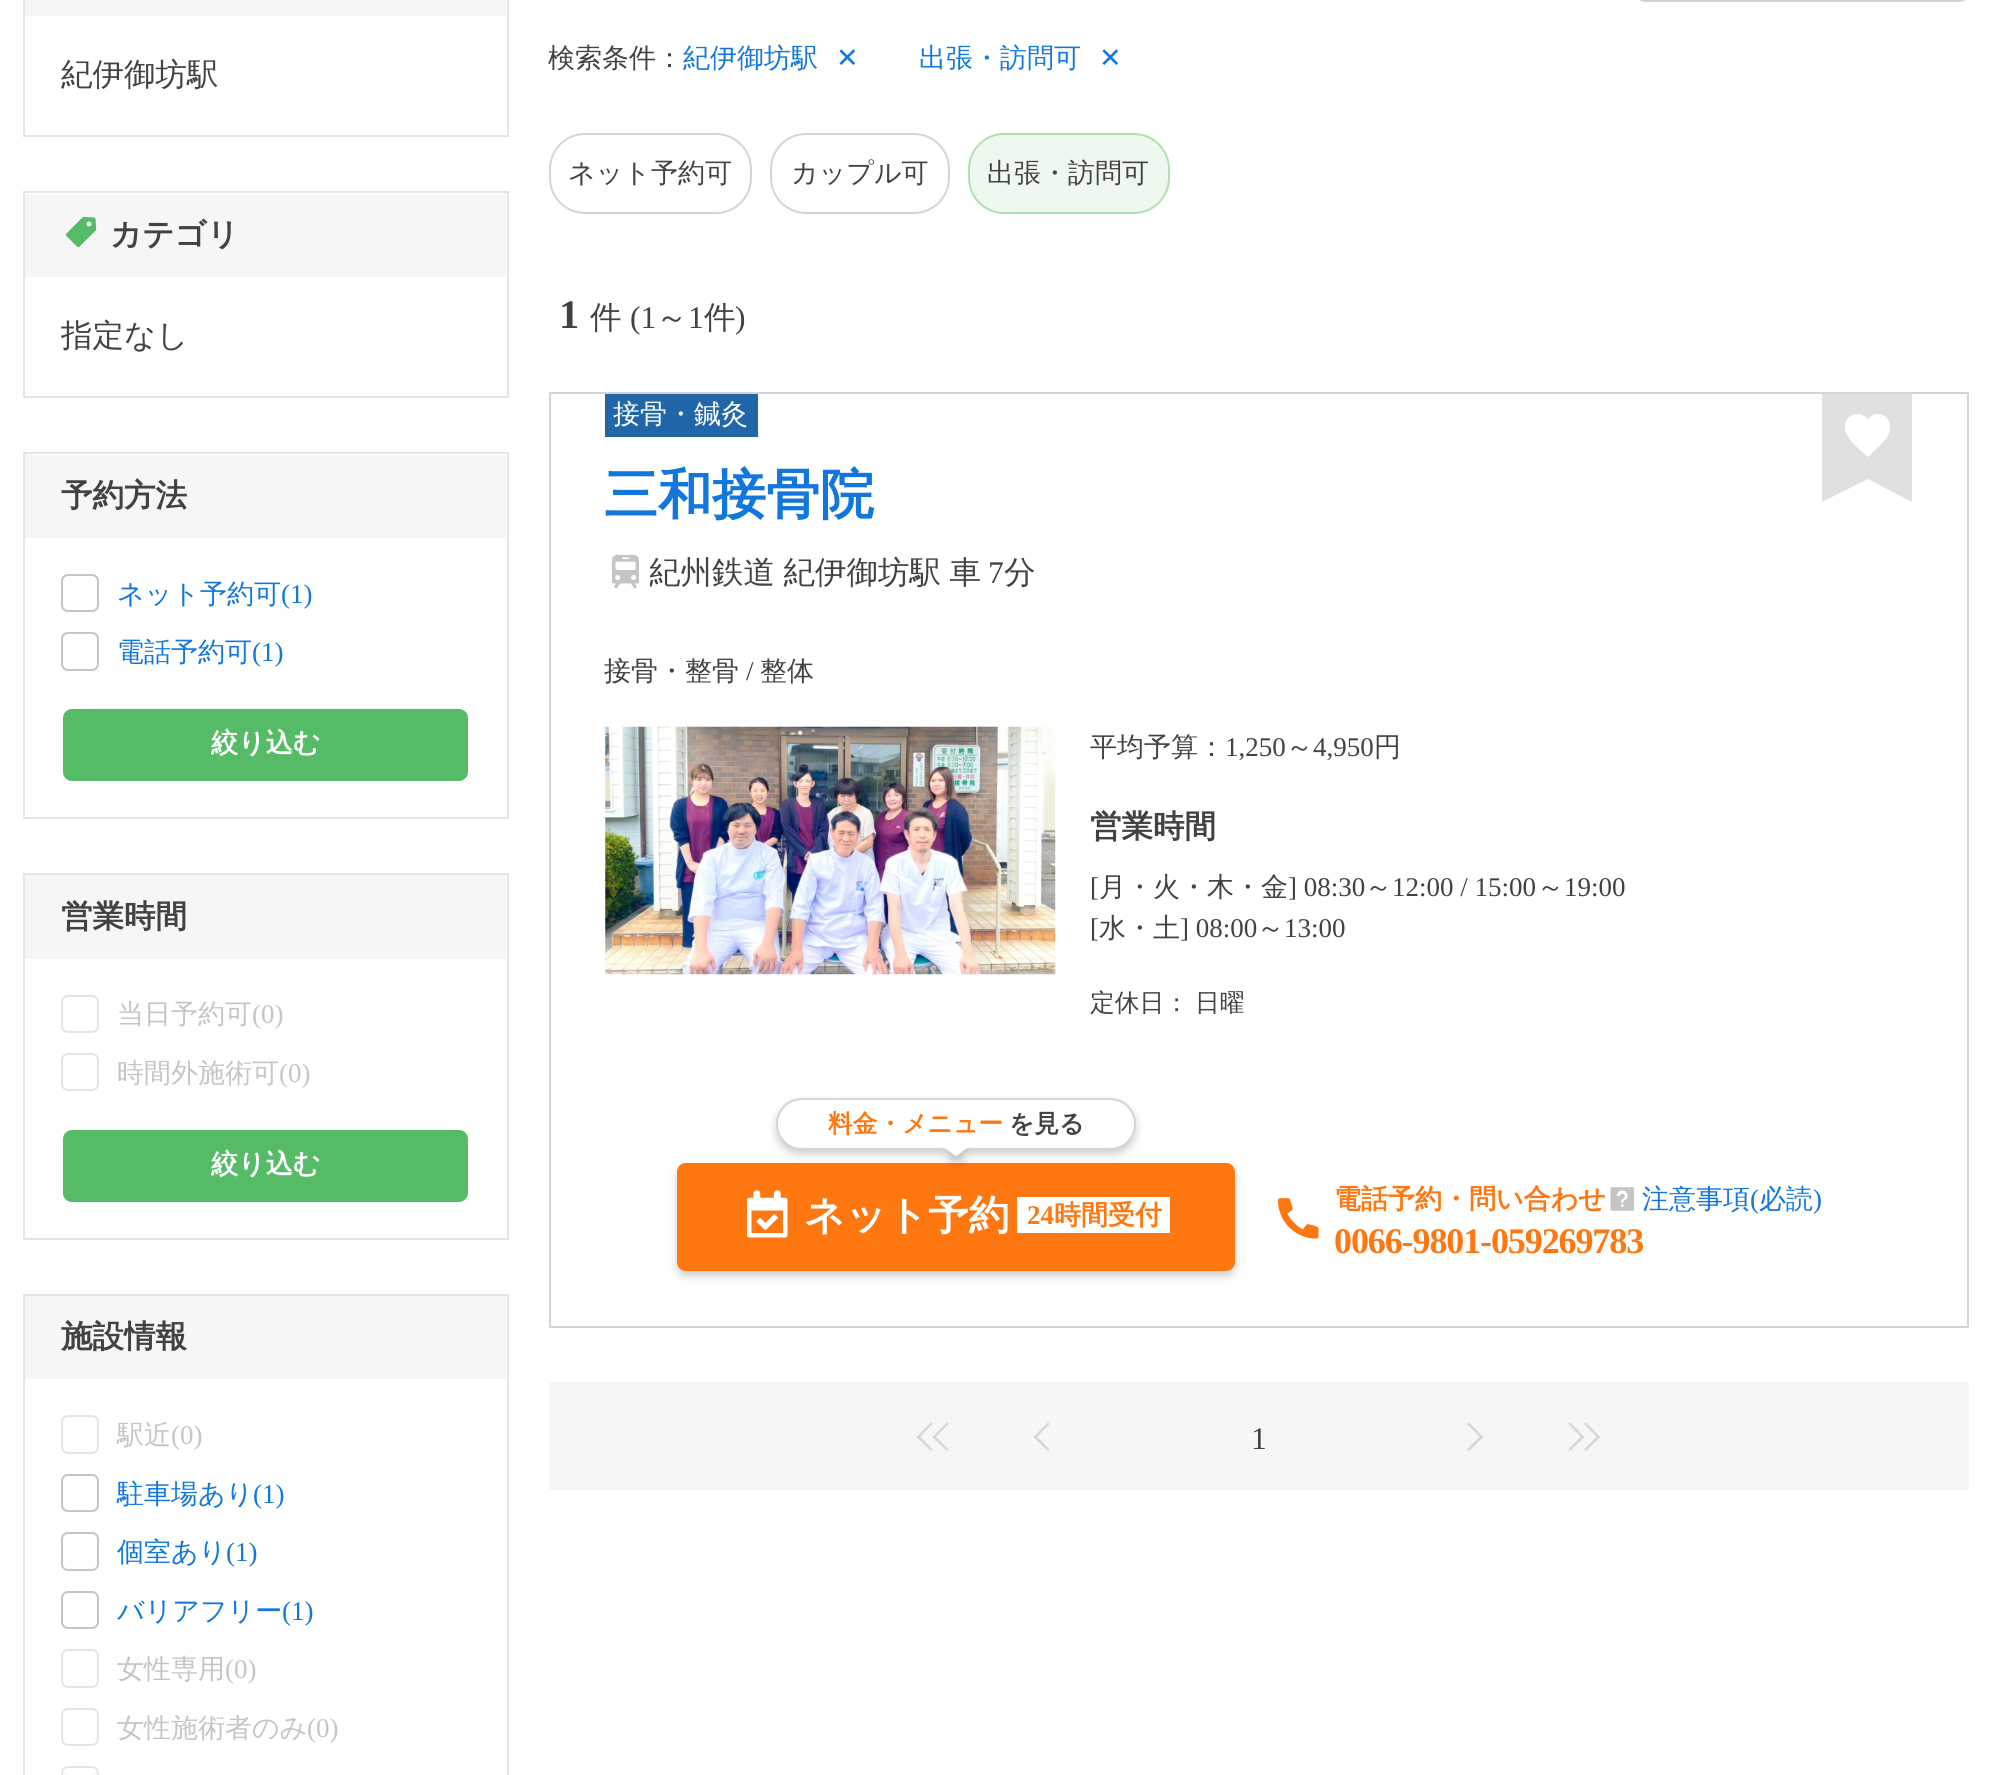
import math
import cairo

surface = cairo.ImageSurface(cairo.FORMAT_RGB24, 1990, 1775)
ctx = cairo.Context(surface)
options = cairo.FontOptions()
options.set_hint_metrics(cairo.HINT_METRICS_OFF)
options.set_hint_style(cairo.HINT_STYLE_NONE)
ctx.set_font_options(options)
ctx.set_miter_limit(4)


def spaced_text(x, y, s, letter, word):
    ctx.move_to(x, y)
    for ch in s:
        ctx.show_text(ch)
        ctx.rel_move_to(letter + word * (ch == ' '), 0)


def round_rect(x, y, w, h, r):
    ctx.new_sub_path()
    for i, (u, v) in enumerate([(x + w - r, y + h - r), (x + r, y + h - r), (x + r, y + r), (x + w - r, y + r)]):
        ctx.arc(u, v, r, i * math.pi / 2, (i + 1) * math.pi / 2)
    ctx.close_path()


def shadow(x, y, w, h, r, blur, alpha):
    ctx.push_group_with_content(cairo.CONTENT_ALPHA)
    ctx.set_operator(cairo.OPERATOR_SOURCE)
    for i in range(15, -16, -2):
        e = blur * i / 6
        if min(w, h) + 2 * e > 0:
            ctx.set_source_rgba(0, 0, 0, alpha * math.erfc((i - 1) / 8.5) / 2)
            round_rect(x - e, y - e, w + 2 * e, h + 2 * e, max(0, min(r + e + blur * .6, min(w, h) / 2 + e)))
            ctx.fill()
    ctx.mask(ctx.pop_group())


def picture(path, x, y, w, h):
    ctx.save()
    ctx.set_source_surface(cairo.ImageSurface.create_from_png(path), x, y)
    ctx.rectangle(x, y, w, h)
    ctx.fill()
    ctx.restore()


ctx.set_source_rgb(1, 1, 1)
ctx.paint()
round_rect(1637, -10, 331, 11, 8)
ctx.set_source_rgb(0.835, 0.835, 0.835)
ctx.stroke()
ctx.rectangle(24, -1, 484, 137)
ctx.set_source_rgb(0.898, 0.898, 0.898)
ctx.stroke()
ctx.set_source_rgb(0.961, 0.961, 0.961)
ctx.rectangle(25, 0, 481, 16)
ctx.fill()
ctx.select_font_face("WenQuanYi Zen Hei Medium")
ctx.set_font_size(31.5)
ctx.set_source_rgb(0.259, 0.259, 0.259)
ctx.move_to(61, 85)
ctx.show_text("紀伊御坊駅")
ctx.rectangle(24, 192, 484, 205)
ctx.set_source_rgb(0.898, 0.898, 0.898)
ctx.stroke()
ctx.set_source_rgb(0.961, 0.961, 0.961)
ctx.rectangle(25, 194, 481, 83)
ctx.fill()
picture("img1.png", 65, 216, 32, 32)
ctx.select_font_face("WenQuanYi Zen Hei", cairo.FONT_SLANT_NORMAL, cairo.FONT_WEIGHT_BOLD)
ctx.set_source_rgb(0.259, 0.259, 0.259)
ctx.move_to(110, 245)
ctx.show_text("カテゴリ")
ctx.select_font_face("WenQuanYi Zen Hei Medium")
ctx.move_to(61, 346)
ctx.show_text("指定なし")
ctx.rectangle(24, 453, 484, 365)
ctx.set_source_rgb(0.898, 0.898, 0.898)
ctx.stroke()
ctx.set_source_rgb(0.961, 0.961, 0.961)
ctx.rectangle(25, 455, 481, 83)
ctx.fill()
ctx.select_font_face("WenQuanYi Zen Hei", cairo.FONT_SLANT_NORMAL, cairo.FONT_WEIGHT_BOLD)
ctx.set_source_rgb(0.259, 0.259, 0.259)
ctx.move_to(61, 506)
ctx.show_text("予約方法")
round_rect(62, 575, 36, 36, 6)
ctx.set_source_rgb(0.773, 0.773, 0.773)
ctx.stroke()
ctx.select_font_face("WenQuanYi Zen Hei Medium")
ctx.set_font_size(27)
ctx.set_source_rgb(0.067, 0.467, 0.867)
ctx.move_to(117, 603)
ctx.show_text("ネット予約可")
ctx.select_font_face("Liberation Serif")
ctx.move_to(281, 603)
ctx.show_text("(1)")
round_rect(62, 633, 36, 37, 6)
ctx.set_source_rgb(0.773, 0.773, 0.773)
ctx.stroke()
ctx.select_font_face("WenQuanYi Zen Hei Medium")
ctx.set_source_rgb(0.067, 0.467, 0.867)
ctx.move_to(117, 661)
ctx.show_text("電話予約可")
ctx.select_font_face("Liberation Serif")
ctx.move_to(252, 661)
ctx.show_text("(1)")
ctx.set_source_rgb(0.333, 0.733, 0.4)
round_rect(63, 709, 405, 72, 9)
ctx.fill()
ctx.select_font_face("WenQuanYi Zen Hei", cairo.FONT_SLANT_NORMAL, cairo.FONT_WEIGHT_BOLD)
ctx.set_source_rgb(1, 1, 1)
ctx.move_to(211, 752)
ctx.show_text("絞り込む")
ctx.rectangle(24, 874, 484, 365)
ctx.set_source_rgb(0.898, 0.898, 0.898)
ctx.stroke()
ctx.set_source_rgb(0.961, 0.961, 0.961)
ctx.rectangle(25, 875, 481, 84)
ctx.fill()
ctx.set_font_size(31.5)
ctx.set_source_rgb(0.259, 0.259, 0.259)
ctx.move_to(61, 927)
ctx.show_text("営業時間")
round_rect(62, 996, 36, 36, 6)
ctx.set_source_rgb(0.898, 0.898, 0.898)
ctx.stroke()
ctx.select_font_face("WenQuanYi Zen Hei Medium")
ctx.set_font_size(27)
ctx.set_source_rgb(0.773, 0.773, 0.773)
ctx.move_to(117, 1023)
ctx.show_text("当日予約可")
ctx.select_font_face("Liberation Serif")
ctx.move_to(252, 1023)
ctx.show_text("(0)")
round_rect(62, 1054, 36, 36, 6)
ctx.set_source_rgb(0.898, 0.898, 0.898)
ctx.stroke()
ctx.select_font_face("WenQuanYi Zen Hei Medium")
ctx.set_source_rgb(0.773, 0.773, 0.773)
ctx.move_to(117, 1082)
ctx.show_text("時間外施術可")
ctx.select_font_face("Liberation Serif")
ctx.move_to(279, 1082)
ctx.show_text("(0)")
ctx.set_source_rgb(0.333, 0.733, 0.4)
round_rect(63, 1130, 405, 72, 9)
ctx.fill()
ctx.select_font_face("WenQuanYi Zen Hei", cairo.FONT_SLANT_NORMAL, cairo.FONT_WEIGHT_BOLD)
ctx.set_source_rgb(1, 1, 1)
ctx.move_to(211, 1173)
ctx.show_text("絞り込む")
ctx.rectangle(24, 1295, 484, 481)
ctx.set_source_rgb(0.898, 0.898, 0.898)
ctx.stroke()
ctx.set_source_rgb(0.961, 0.961, 0.961)
ctx.rectangle(25, 1296, 481, 83)
ctx.fill()
ctx.set_font_size(31.5)
ctx.set_source_rgb(0.259, 0.259, 0.259)
ctx.move_to(61, 1347)
ctx.show_text("施設情報")
round_rect(62, 1416, 36, 37, 6)
ctx.set_source_rgb(0.898, 0.898, 0.898)
ctx.stroke()
ctx.select_font_face("WenQuanYi Zen Hei Medium")
ctx.set_font_size(27)
ctx.set_source_rgb(0.773, 0.773, 0.773)
ctx.move_to(117, 1444)
ctx.show_text("駅近")
ctx.select_font_face("Liberation Serif")
ctx.move_to(171, 1444)
ctx.show_text("(0)")
round_rect(62, 1475, 36, 36, 6)
ctx.stroke()
ctx.select_font_face("WenQuanYi Zen Hei Medium")
ctx.set_source_rgb(0.067, 0.467, 0.867)
ctx.move_to(117, 1503)
ctx.show_text("駐車場あり")
ctx.select_font_face("Liberation Serif")
ctx.move_to(253, 1503)
ctx.show_text("(1)")
round_rect(62, 1533, 36, 37, 6)
ctx.set_source_rgb(0.773, 0.773, 0.773)
ctx.stroke()
ctx.select_font_face("WenQuanYi Zen Hei Medium")
ctx.set_source_rgb(0.067, 0.467, 0.867)
ctx.move_to(117, 1561)
ctx.show_text("個室あり")
ctx.select_font_face("Liberation Serif")
ctx.move_to(226, 1561)
ctx.show_text("(1)")
round_rect(62, 1592, 36, 36, 6)
ctx.set_source_rgb(0.773, 0.773, 0.773)
ctx.stroke()
ctx.select_font_face("WenQuanYi Zen Hei Medium")
ctx.set_source_rgb(0.067, 0.467, 0.867)
ctx.move_to(117, 1620)
ctx.show_text("バリアフリー")
ctx.select_font_face("Liberation Serif")
ctx.move_to(282, 1620)
ctx.show_text("(1)")
round_rect(62, 1650, 36, 37, 6)
ctx.set_source_rgb(0.898, 0.898, 0.898)
ctx.stroke()
ctx.select_font_face("WenQuanYi Zen Hei Medium")
ctx.set_source_rgb(0.773, 0.773, 0.773)
ctx.move_to(117, 1678)
ctx.show_text("女性専用")
ctx.select_font_face("Liberation Serif")
ctx.move_to(225, 1678)
ctx.show_text("(0)")
round_rect(62, 1709, 36, 36, 6)
ctx.set_source_rgb(0.898, 0.898, 0.898)
ctx.stroke()
ctx.select_font_face("WenQuanYi Zen Hei Medium")
ctx.set_source_rgb(0.773, 0.773, 0.773)
ctx.move_to(117, 1737)
ctx.show_text("女性施術者のみ")
ctx.select_font_face("Liberation Serif")
ctx.move_to(307, 1737)
ctx.show_text("(0)")
round_rect(62, 1767, 36, 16, 6)
ctx.set_source_rgb(0.898, 0.898, 0.898)
ctx.stroke()
ctx.select_font_face("WenQuanYi Zen Hei Medium")
ctx.set_source_rgb(0.259, 0.259, 0.259)
ctx.move_to(548, 67)
ctx.show_text("検索条件：")
ctx.set_source_rgb(0.067, 0.467, 0.867)
ctx.move_to(683, 67)
ctx.show_text("紀伊御坊駅")
ctx.select_font_face("DejaVu Sans")
ctx.move_to(836, 67)
ctx.show_text("✕")
ctx.select_font_face("WenQuanYi Zen Hei Medium")
ctx.move_to(919, 67)
ctx.show_text("出張・訪問可")
ctx.select_font_face("DejaVu Sans")
ctx.move_to(1099, 67)
ctx.show_text("✕")
round_rect(550, 134, 201, 79, 35)
ctx.set_source_rgb(0.835, 0.835, 0.835)
ctx.stroke()
ctx.select_font_face("WenQuanYi Zen Hei Medium")
ctx.set_source_rgb(0.259, 0.259, 0.259)
ctx.move_to(568, 182)
ctx.show_text("ネット予約可")
round_rect(771, 134, 178, 79, 35)
ctx.set_source_rgb(0.835, 0.835, 0.835)
ctx.stroke()
ctx.set_source_rgb(0.259, 0.259, 0.259)
ctx.move_to(791, 182)
ctx.show_text("カップル可")
ctx.set_source_rgb(0.937, 0.969, 0.937)
round_rect(969, 134, 200, 79, 35)
ctx.fill_preserve()
ctx.set_source_rgb(0.69, 0.878, 0.69)
ctx.stroke()
ctx.set_source_rgb(0.259, 0.259, 0.259)
ctx.move_to(987, 182)
ctx.show_text("出張・訪問可")
ctx.select_font_face("Liberation Serif", cairo.FONT_SLANT_NORMAL, cairo.FONT_WEIGHT_BOLD)
ctx.set_font_size(40.5)
ctx.move_to(559, 328)
ctx.show_text("1")
ctx.select_font_face("WenQuanYi Zen Hei Medium")
ctx.set_font_size(31.5)
ctx.move_to(590, 328)
ctx.show_text("件")
ctx.select_font_face("Liberation Serif")
ctx.move_to(630, 328)
ctx.show_text("(1")
ctx.select_font_face("WenQuanYi Zen Hei Medium")
ctx.move_to(656, 328)
ctx.show_text("～")
ctx.select_font_face("Liberation Serif")
ctx.move_to(688, 328)
ctx.show_text("1")
ctx.select_font_face("WenQuanYi Zen Hei Medium")
ctx.move_to(704, 328)
ctx.show_text("件")
ctx.select_font_face("Liberation Serif")
ctx.move_to(735, 328)
ctx.show_text(")")
ctx.rectangle(550, 393, 1418, 934)
ctx.set_source_rgb(0.835, 0.835, 0.835)
ctx.stroke()
ctx.set_source_rgb(0.133, 0.4, 0.667)
ctx.rectangle(605, 394, 153, 43)
ctx.fill()
ctx.select_font_face("WenQuanYi Zen Hei Medium")
ctx.set_font_size(27)
ctx.set_source_rgb(1, 1, 1)
ctx.move_to(613, 423)
ctx.show_text("接骨・鍼灸")
ctx.select_font_face("WenQuanYi Zen Hei", cairo.FONT_SLANT_NORMAL, cairo.FONT_WEIGHT_BOLD)
ctx.set_font_size(54)
ctx.set_source_rgb(0.067, 0.467, 0.867)
ctx.move_to(604, 513)
ctx.show_text("三和接骨院")
ctx.set_source_rgb(0.878, 0.878, 0.878)
ctx.new_path()
ctx.move_to(1912, 502)
ctx.line_to(1868, 479)
ctx.line_to(1822, 502)
ctx.line_to(1822, 394)
ctx.line_to(1912, 394)
ctx.close_path()
ctx.fill()
ctx.set_source_rgb(1, 1, 1)
ctx.new_path()
ctx.move_to(1871, 454)
ctx.line_to(1868, 457)
ctx.curve_to(1861, 451, 1850, 442, 1846, 433)
ctx.curve_to(1840, 418, 1857, 407, 1868, 419)
ctx.curve_to(1878, 407, 1895, 418, 1889, 433)
ctx.curve_to(1886, 441, 1877, 448, 1871, 454)
ctx.close_path()
ctx.fill()
picture("img2.png", 612, 554, 27, 35)
ctx.save()
ctx.rectangle(650, 549, 385, 47)
ctx.clip()
ctx.select_font_face("WenQuanYi Zen Hei Medium")
ctx.set_font_size(31.5)
ctx.set_source_rgb(0.259, 0.259, 0.259)
spaced_text(649, 583, "紀州鉄道 紀伊御坊駅 車", 0, -1)
ctx.restore()
ctx.select_font_face("Liberation Serif")
ctx.set_font_size(31.5)
ctx.set_source_rgb(0.259, 0.259, 0.259)
ctx.move_to(988, 583)
ctx.show_text("7")
ctx.select_font_face("WenQuanYi Zen Hei Medium")
ctx.move_to(1004, 583)
ctx.show_text("分")
ctx.set_font_size(27)
ctx.move_to(604, 680)
ctx.show_text("接骨・整骨")
ctx.select_font_face("Liberation Serif")
ctx.move_to(746, 680)
ctx.show_text("/")
ctx.select_font_face("WenQuanYi Zen Hei Medium")
ctx.move_to(760, 680)
ctx.show_text("整体")
picture("img3.png", 605, 726, 451, 249)
ctx.move_to(1090, 756)
ctx.show_text("平均予算：")
ctx.select_font_face("Liberation Serif")
ctx.move_to(1225, 756)
ctx.show_text("1,250")
ctx.select_font_face("WenQuanYi Zen Hei Medium")
ctx.move_to(1286, 756)
ctx.show_text("～")
ctx.select_font_face("Liberation Serif")
ctx.move_to(1313, 756)
ctx.show_text("4,950")
ctx.select_font_face("WenQuanYi Zen Hei Medium")
ctx.move_to(1374, 756)
ctx.show_text("円")
ctx.select_font_face("WenQuanYi Zen Hei", cairo.FONT_SLANT_NORMAL, cairo.FONT_WEIGHT_BOLD)
ctx.set_font_size(31.5)
ctx.move_to(1090, 837)
ctx.show_text("営業時間")
ctx.select_font_face("Liberation Serif")
ctx.set_font_size(27)
ctx.move_to(1090, 896)
ctx.show_text("[")
ctx.select_font_face("WenQuanYi Zen Hei Medium")
ctx.move_to(1099, 896)
ctx.show_text("月・火・木・金")
ctx.select_font_face("Liberation Serif")
ctx.move_to(1288, 896)
ctx.show_text("] 08:30")
ctx.select_font_face("WenQuanYi Zen Hei Medium")
ctx.move_to(1365, 896)
ctx.show_text("～")
ctx.select_font_face("Liberation Serif")
ctx.move_to(1392, 896)
ctx.show_text("12:00 / 15:00")
ctx.select_font_face("WenQuanYi Zen Hei Medium")
ctx.move_to(1537, 896)
ctx.show_text("～")
ctx.select_font_face("Liberation Serif")
ctx.move_to(1564, 896)
ctx.show_text("19:00")
ctx.move_to(1090, 937)
ctx.show_text("[")
ctx.select_font_face("WenQuanYi Zen Hei Medium")
ctx.move_to(1099, 937)
ctx.show_text("水・土")
ctx.select_font_face("Liberation Serif")
ctx.move_to(1180, 937)
ctx.show_text("] 08:00")
ctx.select_font_face("WenQuanYi Zen Hei Medium")
ctx.move_to(1257, 937)
ctx.show_text("～")
ctx.select_font_face("Liberation Serif")
ctx.move_to(1284, 937)
ctx.show_text("13:00")
ctx.select_font_face("WenQuanYi Zen Hei Medium")
ctx.set_font_size(24.75)
ctx.move_to(1090, 1011)
ctx.show_text("定休日：")
ctx.move_to(1195, 1011)
ctx.show_text("日曜")
ctx.set_source_rgb(0, 0, 0)
shadow(677, 1168, 558, 108, 9, 4.5, 0.2)
ctx.set_source_rgb(1, 0.467, 0.067)
round_rect(677, 1163, 558, 108, 9)
ctx.fill()
ctx.set_source_rgb(0, 0, 0)
shadow(776, 1103, 360, 51, 25.5, 4.5, 0.2)
ctx.set_source_rgb(1, 1, 1)
round_rect(777, 1099, 358, 50, 25)
ctx.fill_preserve()
ctx.set_source_rgb(0.835, 0.835, 0.835)
ctx.stroke()
ctx.set_source_rgb(0, 0, 0)
shadow(950, 1148, 13, 13, 0, 4.5, 0.2)
ctx.select_font_face("WenQuanYi Zen Hei", cairo.FONT_SLANT_NORMAL, cairo.FONT_WEIGHT_BOLD)
ctx.set_source_rgb(1, 0.467, 0.067)
ctx.move_to(828, 1132)
ctx.show_text("料金・メニュー")
ctx.set_source_rgb(0.259, 0.259, 0.259)
ctx.move_to(1009, 1132)
ctx.show_text("を見る")
ctx.set_source_rgb(1, 1, 1)
ctx.rectangle(950, 1141, 13, 2)
ctx.fill()
ctx.new_path()
ctx.move_to(938, 1143)
ctx.line_to(974, 1143)
ctx.line_to(956, 1156.5)
ctx.close_path()
ctx.fill()
picture("img4.png", 747, 1190, 41, 48)
ctx.set_font_size(40.5)
ctx.move_to(804, 1229)
ctx.show_text("ネット予約")
ctx.rectangle(1017, 1197, 153, 36)
ctx.fill()
ctx.select_font_face("Liberation Serif", cairo.FONT_SLANT_NORMAL, cairo.FONT_WEIGHT_BOLD)
ctx.set_font_size(27)
ctx.set_source_rgb(1, 0.467, 0.067)
ctx.move_to(1027, 1224)
ctx.show_text("24")
ctx.select_font_face("WenQuanYi Zen Hei", cairo.FONT_SLANT_NORMAL, cairo.FONT_WEIGHT_BOLD)
ctx.move_to(1054, 1224)
ctx.show_text("時間受付")
picture("img5.png", 1278, 1198, 41, 41)
ctx.move_to(1334, 1208)
ctx.show_text("電話予約・問い合わせ")
picture("img6.png", 1610, 1187, 24, 24)
ctx.select_font_face("WenQuanYi Zen Hei Medium")
ctx.set_source_rgb(0.067, 0.467, 0.867)
ctx.move_to(1642, 1208)
ctx.show_text("注意事項")
ctx.select_font_face("Liberation Serif")
ctx.move_to(1750, 1208)
ctx.show_text("(")
ctx.select_font_face("WenQuanYi Zen Hei Medium")
ctx.move_to(1759, 1208)
ctx.show_text("必読")
ctx.select_font_face("Liberation Serif")
ctx.move_to(1813, 1208)
ctx.show_text(")")
ctx.select_font_face("Liberation Serif", cairo.FONT_SLANT_NORMAL, cairo.FONT_WEIGHT_BOLD)
ctx.set_font_size(36)
ctx.set_source_rgb(1, 0.467, 0.067)
spaced_text(1334, 1253, "0066-9801-059269783", -1.1, 0)
ctx.set_source_rgb(0.961, 0.961, 0.961)
ctx.rectangle(549, 1382, 1420, 108)
ctx.fill()
ctx.set_source_rgb(0.835, 0.835, 0.835)
ctx.new_path()
ctx.move_to(931, 1451)
ctx.line_to(916.5, 1437)
ctx.line_to(918.5, 1435)
ctx.line_to(932.5, 1449.5)
ctx.close_path()
ctx.fill()
ctx.new_path()
ctx.move_to(918.5, 1438.5)
ctx.line_to(916.5, 1437)
ctx.line_to(931, 1422.5)
ctx.line_to(932.5, 1424)
ctx.close_path()
ctx.fill()
ctx.new_path()
ctx.move_to(947, 1451)
ctx.line_to(932.5, 1437)
ctx.line_to(934, 1435)
ctx.line_to(948.5, 1449.5)
ctx.close_path()
ctx.fill()
ctx.new_path()
ctx.move_to(934, 1438.5)
ctx.line_to(932.5, 1437)
ctx.line_to(947, 1422.5)
ctx.line_to(948.5, 1424)
ctx.close_path()
ctx.fill()
ctx.new_path()
ctx.move_to(1048, 1451)
ctx.line_to(1033.5, 1437)
ctx.line_to(1035.5, 1435)
ctx.line_to(1049.5, 1449.5)
ctx.close_path()
ctx.fill()
ctx.new_path()
ctx.move_to(1035.5, 1438.5)
ctx.line_to(1033.5, 1437)
ctx.line_to(1048, 1422.5)
ctx.line_to(1049.5, 1424)
ctx.close_path()
ctx.fill()
ctx.select_font_face("Liberation Serif")
ctx.set_font_size(31.5)
ctx.set_source_rgb(0.259, 0.259, 0.259)
ctx.move_to(1251, 1449)
ctx.show_text("1")
ctx.set_source_rgb(0.835, 0.835, 0.835)
ctx.new_path()
ctx.move_to(1469, 1422.5)
ctx.line_to(1483, 1437)
ctx.line_to(1481.5, 1438.5)
ctx.line_to(1467, 1424)
ctx.close_path()
ctx.fill()
ctx.new_path()
ctx.move_to(1481.5, 1435)
ctx.line_to(1483, 1437)
ctx.line_to(1469, 1451)
ctx.line_to(1467, 1449.5)
ctx.close_path()
ctx.fill()
ctx.new_path()
ctx.move_to(1570, 1422.5)
ctx.line_to(1584.5, 1437)
ctx.line_to(1582.5, 1438.5)
ctx.line_to(1568.5, 1424)
ctx.close_path()
ctx.fill()
ctx.new_path()
ctx.move_to(1582.5, 1435)
ctx.line_to(1584.5, 1437)
ctx.line_to(1570, 1451)
ctx.line_to(1568.5, 1449.5)
ctx.close_path()
ctx.fill()
ctx.new_path()
ctx.move_to(1586, 1422.5)
ctx.line_to(1600, 1437)
ctx.line_to(1598.5, 1438.5)
ctx.line_to(1584, 1424)
ctx.close_path()
ctx.fill()
ctx.new_path()
ctx.move_to(1598.5, 1435)
ctx.line_to(1600, 1437)
ctx.line_to(1586, 1451)
ctx.line_to(1584, 1449.5)
ctx.close_path()
ctx.fill()
surface.write_to_png("page.png")
